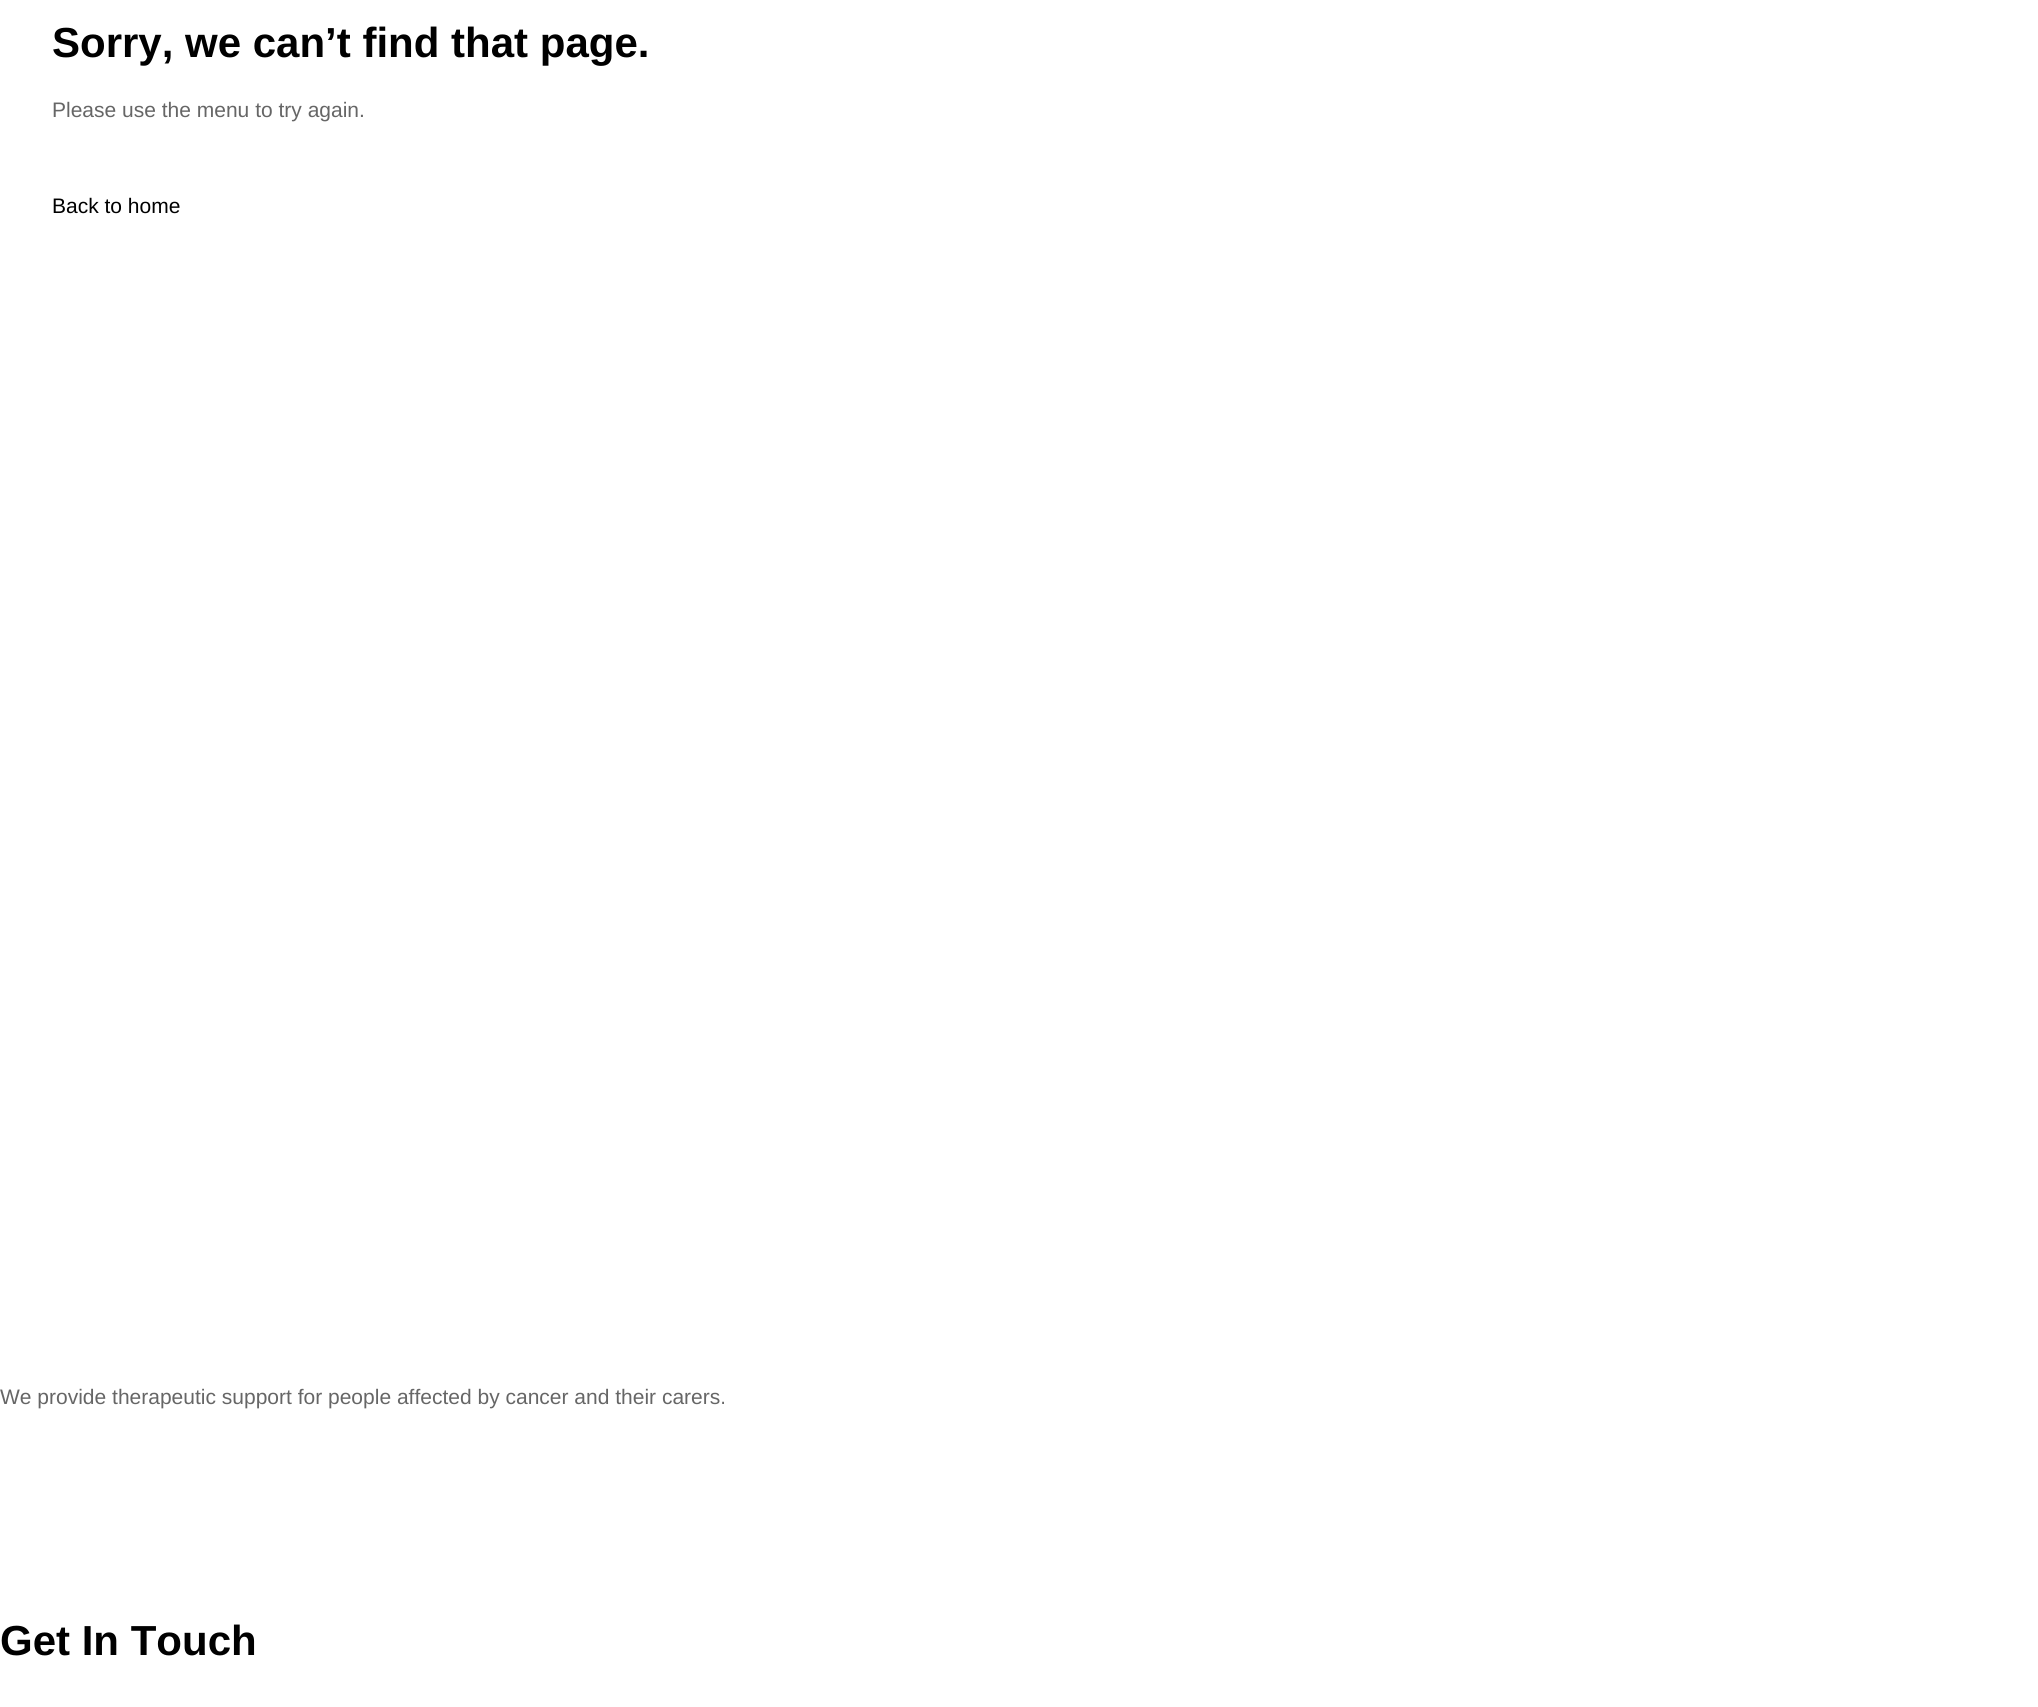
import math
import cairo

surface = cairo.ImageSurface(cairo.FORMAT_RGB24, 2038, 1707)
ctx = cairo.Context(surface)
options = cairo.FontOptions()
options.set_hint_metrics(cairo.HINT_METRICS_OFF)
options.set_hint_style(cairo.HINT_STYLE_NONE)
ctx.set_font_options(options)
ctx.set_miter_limit(4)


ctx.set_source_rgb(1, 1, 1)
ctx.paint()
ctx.select_font_face("Liberation Sans", cairo.FONT_SLANT_NORMAL, cairo.FONT_WEIGHT_BOLD)
ctx.set_font_size(42)
ctx.set_source_rgb(0, 0, 0)
ctx.move_to(52, 57)
ctx.show_text("Sorry, we can’t find that page.")
ctx.select_font_face("Liberation Sans")
ctx.set_font_size(21)
ctx.set_source_rgb(0.4, 0.4, 0.4)
ctx.move_to(52, 117)
ctx.show_text("Please use the menu to try again.")
ctx.set_source_rgb(0, 0, 0)
ctx.move_to(52, 213)
ctx.show_text("Back to home")
ctx.set_source_rgb(0.4, 0.4, 0.4)
ctx.move_to(0, 1404)
ctx.show_text("We provide therapeutic support for people affected by cancer and their carers.")
ctx.select_font_face("Liberation Sans", cairo.FONT_SLANT_NORMAL, cairo.FONT_WEIGHT_BOLD)
ctx.set_font_size(42)
ctx.set_source_rgb(0, 0, 0)
ctx.move_to(0, 1655)
ctx.show_text("Get In Touch")
surface.write_to_png("page.png")
